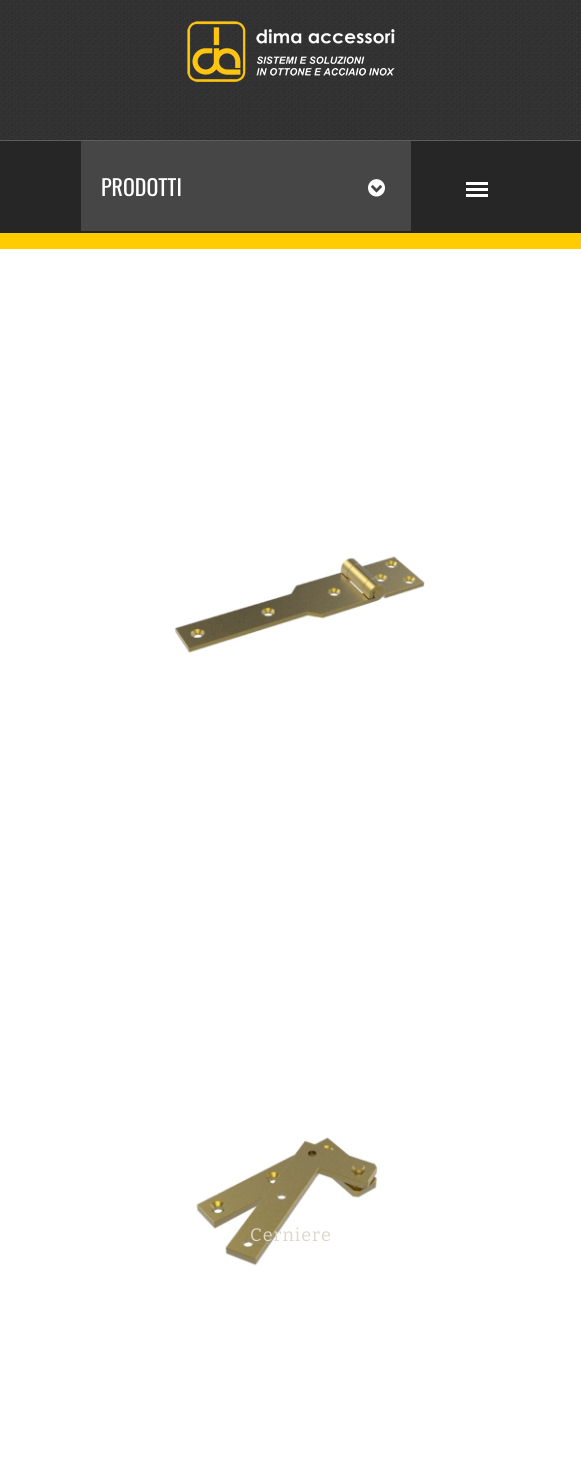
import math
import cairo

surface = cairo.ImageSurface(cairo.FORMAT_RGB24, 581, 1472)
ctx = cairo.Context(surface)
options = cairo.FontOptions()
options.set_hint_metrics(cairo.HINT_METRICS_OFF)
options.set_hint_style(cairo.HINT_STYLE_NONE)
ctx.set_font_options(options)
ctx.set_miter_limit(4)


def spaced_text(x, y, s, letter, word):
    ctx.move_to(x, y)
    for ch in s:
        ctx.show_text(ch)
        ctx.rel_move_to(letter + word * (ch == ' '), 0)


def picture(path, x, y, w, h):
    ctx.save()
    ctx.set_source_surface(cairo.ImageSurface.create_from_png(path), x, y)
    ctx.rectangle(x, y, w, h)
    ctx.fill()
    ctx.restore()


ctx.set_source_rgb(1, 1, 1)
ctx.paint()
picture("img1.png", 0, 0, 581, 140)
ctx.set_source_rgb(0.365, 0.365, 0.365)
ctx.rectangle(0, 140, 581, 1)
ctx.fill()
picture("img2.png", 187, 21, 208, 61)
ctx.set_source_rgb(0.149, 0.149, 0.149)
ctx.rectangle(0, 141, 581, 92)
ctx.fill()
ctx.set_source_rgb(1, 1, 1)
ctx.rectangle(466, 182, 22, 3)
ctx.fill()
ctx.rectangle(466, 188, 22, 3)
ctx.fill()
ctx.rectangle(466, 194, 22, 3)
ctx.fill()
ctx.set_source_rgb(0.275, 0.275, 0.275)
ctx.rectangle(81, 141, 330, 90)
ctx.fill()
picture("img3.png", 368, 179, 17, 18)
ctx.select_font_face("Oswald")
ctx.set_font_size(22)
ctx.set_source_rgb(1, 1, 1)
ctx.move_to(101, 196)
ctx.show_text("PRODOTTI")
ctx.set_source_rgb(1, 0.8, 0)
ctx.rectangle(0, 233, 581, 16)
ctx.fill()
picture("img4.png", 174, 556, 251, 97)
picture("img5.png", 196, 1137, 182, 129)
ctx.select_font_face("Bitter")
ctx.set_font_size(18)
ctx.set_source_rgb(0.863, 0.843, 0.784)
spaced_text(250, 1241, "Cerniere", 1, 0)
surface.write_to_png("page.png")
